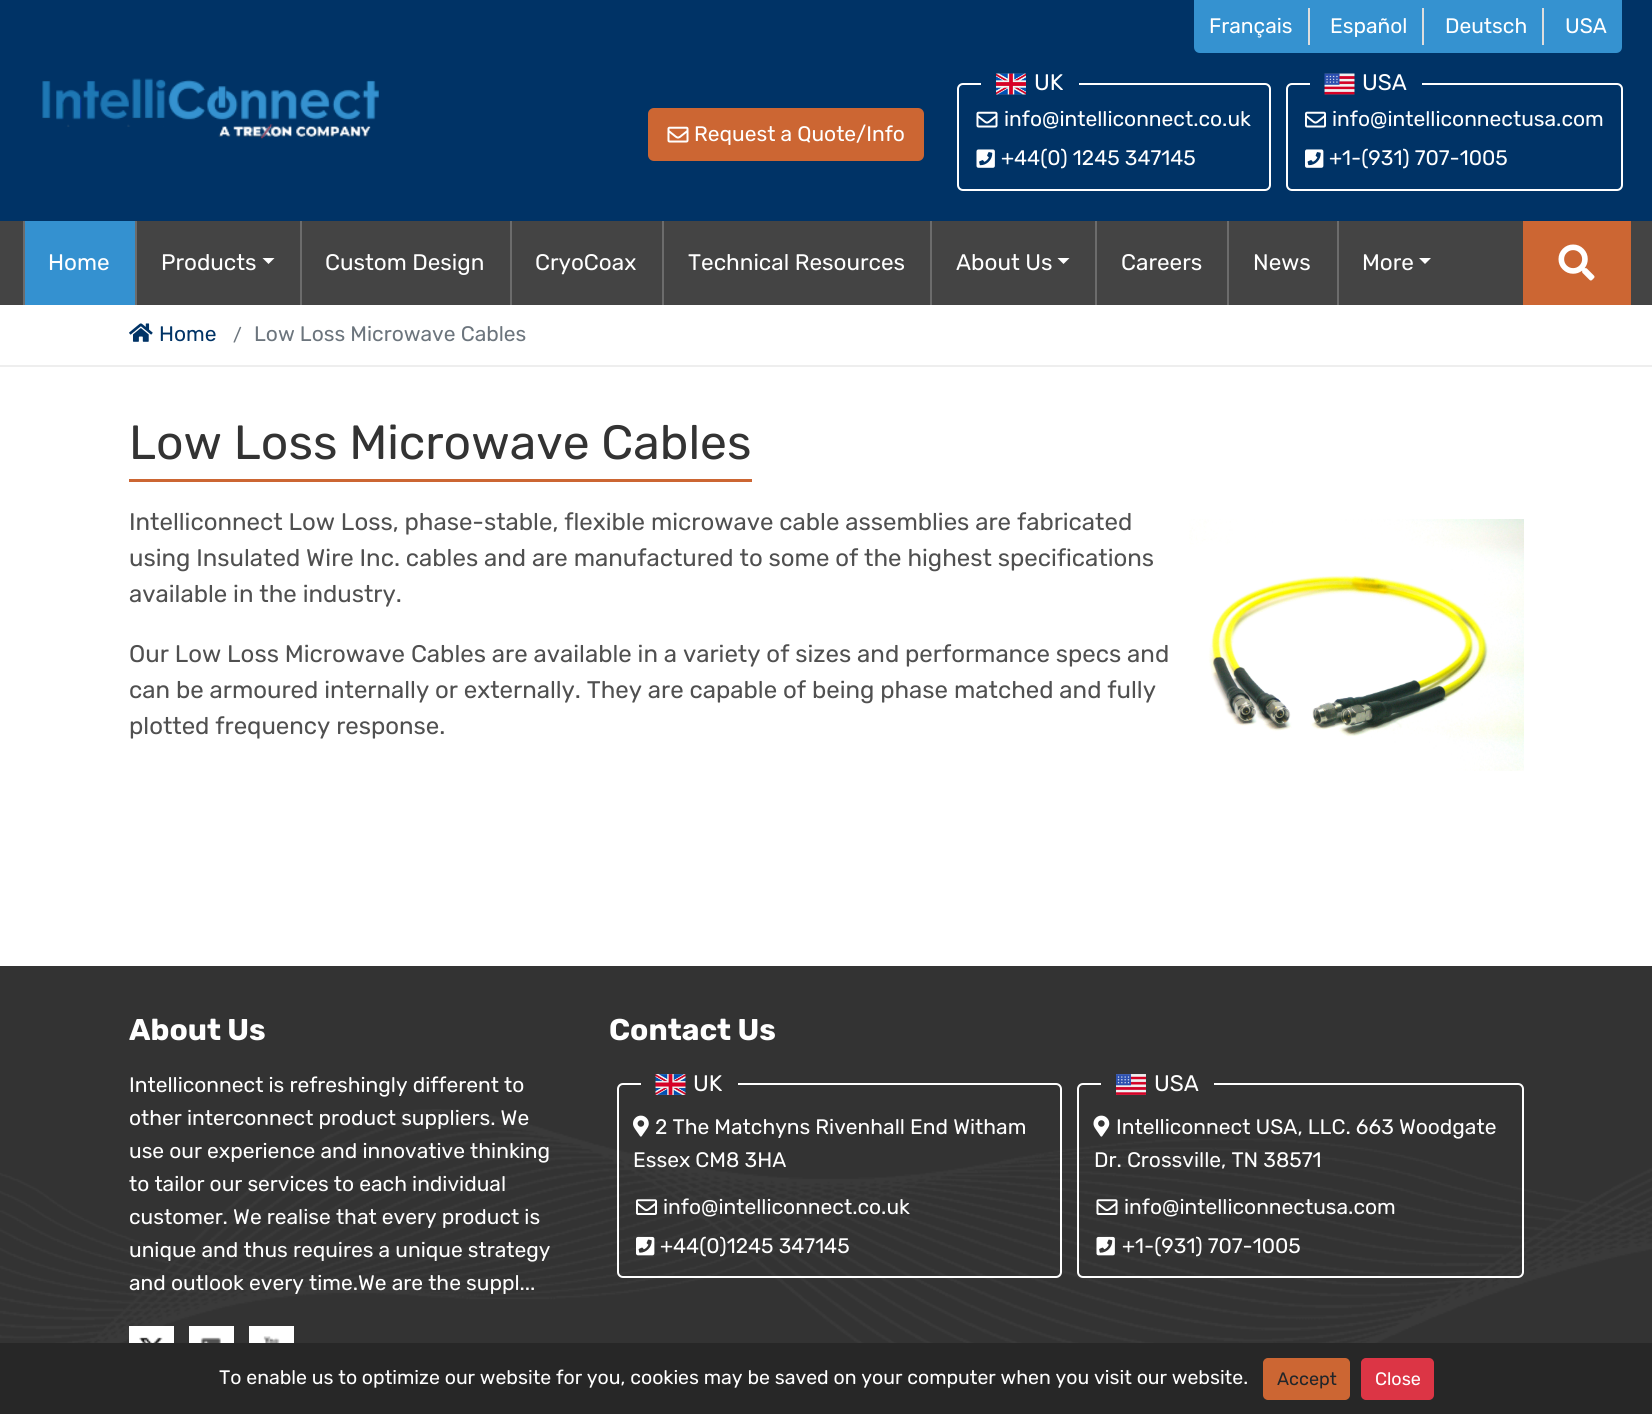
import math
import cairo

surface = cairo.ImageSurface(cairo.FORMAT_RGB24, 1652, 1414)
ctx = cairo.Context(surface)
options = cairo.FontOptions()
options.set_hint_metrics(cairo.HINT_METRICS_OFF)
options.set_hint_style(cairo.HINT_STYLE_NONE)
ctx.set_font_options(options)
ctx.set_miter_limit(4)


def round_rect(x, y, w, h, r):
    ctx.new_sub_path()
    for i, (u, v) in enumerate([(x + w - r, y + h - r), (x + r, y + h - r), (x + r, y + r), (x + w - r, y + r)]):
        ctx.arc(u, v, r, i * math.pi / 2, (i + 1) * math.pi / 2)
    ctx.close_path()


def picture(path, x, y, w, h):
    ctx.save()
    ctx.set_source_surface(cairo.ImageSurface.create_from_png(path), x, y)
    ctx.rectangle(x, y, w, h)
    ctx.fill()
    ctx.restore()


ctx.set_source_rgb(1, 1, 1)
ctx.paint()
ctx.set_source_rgb(0, 0.2, 0.4)
ctx.rectangle(0, 0, 1652, 221)
ctx.fill()
picture("img1.png", 42, 78, 337, 62)
ctx.set_source_rgb(0.208, 0.573, 0.816)
ctx.new_path()
ctx.move_to(1194, 0)
ctx.line_to(1622, 0)
ctx.line_to(1622, 47)
ctx.curve_to(1622, 50.5, 1619.5, 53, 1616, 53)
ctx.line_to(1200, 53)
ctx.curve_to(1196.5, 53, 1194, 50.5, 1194, 47)
ctx.close_path()
ctx.fill()
ctx.set_source_rgb(0.867, 0.867, 0.867)
ctx.rectangle(1308, 8, 2, 37)
ctx.fill()
ctx.select_font_face("Rubik")
ctx.set_font_size(21)
ctx.set_source_rgb(1, 1, 1)
ctx.move_to(1209, 33)
ctx.show_text("Français")
ctx.set_source_rgb(0.867, 0.867, 0.867)
ctx.rectangle(1422, 8, 2, 37)
ctx.fill()
ctx.set_source_rgb(1, 1, 1)
ctx.move_to(1330, 33)
ctx.show_text("Español")
ctx.set_source_rgb(0.867, 0.867, 0.867)
ctx.rectangle(1542, 8, 2, 37)
ctx.fill()
ctx.set_source_rgb(1, 1, 1)
ctx.move_to(1445, 33)
ctx.show_text("Deutsch")
ctx.move_to(1565, 33)
ctx.show_text("USA")
ctx.set_source_rgb(0.8, 0.4, 0.2)
round_rect(649, 109, 274, 51, 5)
ctx.fill_preserve()
ctx.stroke()
picture("img2.png", 667, 126, 22, 17)
ctx.set_source_rgb(1, 1, 1)
ctx.move_to(694, 141)
ctx.show_text("Request a Quote/Info")
round_rect(958, 84, 312, 106, 5)
ctx.stroke()
ctx.set_source_rgb(0, 0.2, 0.4)
ctx.rectangle(981, 83, 98, 2)
ctx.fill()
picture("img3.png", 996, 73, 30, 22)
ctx.set_font_size(22.5)
ctx.set_source_rgb(1, 1, 1)
ctx.move_to(1034, 90)
ctx.show_text("UK")
picture("img4.png", 976, 111, 22, 17)
ctx.set_font_size(21)
ctx.move_to(1004, 126)
ctx.show_text("info@intelliconnect.co.uk")
picture("img5.png", 976, 149, 19, 19)
ctx.move_to(1001, 165)
ctx.show_text("+44(0) 1245 347145")
round_rect(1287, 84, 335, 106, 5)
ctx.stroke()
ctx.set_source_rgb(0, 0.2, 0.4)
ctx.rectangle(1310, 83, 112, 2)
ctx.fill()
picture("img6.png", 1324, 73, 31, 22)
ctx.set_font_size(22.5)
ctx.set_source_rgb(1, 1, 1)
ctx.move_to(1362, 90)
ctx.show_text("USA")
picture("img7.png", 1305, 111, 21, 17)
ctx.set_font_size(21)
ctx.move_to(1332, 126)
ctx.show_text("info@intelliconnectusa.com")
picture("img8.png", 1305, 149, 19, 19)
ctx.move_to(1329, 165)
ctx.show_text("+1-(931) 707-1005")
ctx.set_source_rgb(0.267, 0.267, 0.267)
ctx.rectangle(0, 221, 1652, 84)
ctx.fill()
ctx.set_source_rgb(0.204, 0.569, 0.816)
ctx.rectangle(25, 221, 110, 84)
ctx.fill()
ctx.set_source_rgb(0.424, 0.424, 0.424)
ctx.rectangle(23, 221, 2, 84)
ctx.fill()
ctx.set_font_size(22.5)
ctx.set_source_rgb(1, 1, 1)
ctx.move_to(48, 270)
ctx.show_text("Home")
ctx.set_source_rgb(0.424, 0.424, 0.424)
ctx.rectangle(135, 221, 2, 84)
ctx.fill()
ctx.set_source_rgb(1, 1, 1)
ctx.move_to(161, 270)
ctx.show_text("Products")
ctx.new_path()
ctx.move_to(262.5, 258)
ctx.line_to(274.5, 258)
ctx.line_to(268.5, 264)
ctx.close_path()
ctx.fill()
ctx.set_source_rgb(0.424, 0.424, 0.424)
ctx.rectangle(300, 221, 2, 84)
ctx.fill()
ctx.set_source_rgb(1, 1, 1)
ctx.move_to(325, 270)
ctx.show_text("Custom Design")
ctx.set_source_rgb(0.424, 0.424, 0.424)
ctx.rectangle(510, 221, 2, 84)
ctx.fill()
ctx.set_source_rgb(1, 1, 1)
ctx.move_to(535, 270)
ctx.show_text("CryoCoax")
ctx.set_source_rgb(0.424, 0.424, 0.424)
ctx.rectangle(662, 221, 2, 84)
ctx.fill()
ctx.set_source_rgb(1, 1, 1)
ctx.move_to(688, 270)
ctx.show_text("Technical Resources")
ctx.set_source_rgb(0.424, 0.424, 0.424)
ctx.rectangle(930, 221, 2, 84)
ctx.fill()
ctx.set_source_rgb(1, 1, 1)
ctx.move_to(956, 270)
ctx.show_text("About Us")
ctx.new_path()
ctx.move_to(1057.5, 258)
ctx.line_to(1069.5, 258)
ctx.line_to(1063.5, 264)
ctx.close_path()
ctx.fill()
ctx.set_source_rgb(0.424, 0.424, 0.424)
ctx.rectangle(1095, 221, 2, 84)
ctx.fill()
ctx.set_source_rgb(1, 1, 1)
ctx.move_to(1121, 270)
ctx.show_text("Careers")
ctx.set_source_rgb(0.424, 0.424, 0.424)
ctx.rectangle(1227, 221, 2, 84)
ctx.fill()
ctx.set_source_rgb(1, 1, 1)
ctx.move_to(1253, 270)
ctx.show_text("News")
ctx.set_source_rgb(0.424, 0.424, 0.424)
ctx.rectangle(1337, 221, 2, 84)
ctx.fill()
ctx.set_source_rgb(1, 1, 1)
ctx.move_to(1362, 270)
ctx.show_text("More")
ctx.new_path()
ctx.move_to(1419, 258)
ctx.line_to(1431, 258)
ctx.line_to(1425, 264)
ctx.close_path()
ctx.fill()
ctx.set_source_rgb(0.8, 0.4, 0.2)
ctx.rectangle(1523, 221, 108, 84)
ctx.fill()
picture("img9.png", 1558, 244, 37, 37)
ctx.set_source_rgb(0.933, 0.933, 0.933)
ctx.rectangle(0, 365, 1652, 2)
ctx.fill()
picture("img10.png", 129, 323, 24, 19)
ctx.set_font_size(21)
ctx.set_source_rgb(0, 0.2, 0.4)
ctx.move_to(159, 341)
ctx.show_text("Home")
ctx.set_font_size(18)
ctx.set_source_rgb(0.424, 0.459, 0.49)
ctx.move_to(233, 341)
ctx.show_text("/")
ctx.set_font_size(21)
ctx.move_to(254, 341)
ctx.show_text("Low Loss Microwave Cables")
ctx.set_source_rgb(0.8, 0.4, 0.2)
ctx.rectangle(129, 479, 623, 3)
ctx.fill()
ctx.set_font_size(48)
ctx.set_source_rgb(0.2, 0.2, 0.2)
ctx.move_to(129, 459)
ctx.show_text("Low Loss Microwave Cables")
ctx.set_font_size(24)
ctx.set_source_rgb(0.314, 0.314, 0.314)
ctx.move_to(129, 530)
ctx.show_text("Intelliconnect Low Loss, phase-stable, flexible microwave cable assemblies are fabricated")
picture("img11.png", 1189, 519, 335, 252)
ctx.move_to(129, 566)
ctx.show_text("using Insulated Wire Inc. cables and are manufactured to some of the highest specifications")
ctx.move_to(129, 602)
ctx.show_text("available in the industry.")
ctx.move_to(129, 662)
ctx.show_text("Our Low Loss Microwave Cables are available in a variety of sizes and performance specs and")
ctx.move_to(129, 698)
ctx.show_text("can be armoured internally or externally. They are capable of being phase matched and fully")
ctx.move_to(129, 734)
ctx.show_text("plotted frequency response.")
ctx.set_source_rgb(0.2, 0.2, 0.2)
ctx.rectangle(0, 966, 1652, 377)
ctx.fill()
picture("img12.png", 0, 1109, 1652, 234)
ctx.select_font_face("Rubik", cairo.FONT_SLANT_NORMAL, cairo.FONT_WEIGHT_BOLD)
ctx.set_font_size(30)
ctx.set_source_rgb(1, 1, 1)
ctx.move_to(129, 1040)
ctx.show_text("About Us")
ctx.select_font_face("Rubik")
ctx.set_font_size(21)
ctx.move_to(129, 1092)
ctx.show_text("Intelliconnect is refreshingly different to")
ctx.move_to(129, 1125)
ctx.show_text("other interconnect product suppliers. We")
ctx.move_to(129, 1158)
ctx.show_text("use our experience and innovative thinking")
ctx.move_to(129, 1191)
ctx.show_text("to tailor our services to each individual")
ctx.move_to(129, 1224)
ctx.show_text("customer. We realise that every product is")
ctx.move_to(129, 1257)
ctx.show_text("unique and thus requires a unique strategy")
ctx.move_to(129, 1290)
ctx.show_text("and outlook every time.We are the suppl...")
ctx.rectangle(129, 1326, 45, 17)
ctx.fill()
picture("img13.png", 139, 1337, 24, 6)
ctx.rectangle(189, 1326, 45, 17)
ctx.fill()
picture("img14.png", 200, 1337, 21, 6)
ctx.rectangle(249, 1326, 45, 17)
ctx.fill()
picture("img15.png", 263, 1336, 17, 7)
ctx.select_font_face("Rubik", cairo.FONT_SLANT_NORMAL, cairo.FONT_WEIGHT_BOLD)
ctx.set_font_size(30)
ctx.move_to(609, 1040)
ctx.show_text("Contact Us")
round_rect(618, 1084, 443, 193, 5)
ctx.stroke()
ctx.set_source_rgb(0.2, 0.2, 0.2)
ctx.rectangle(641, 1083, 97, 2)
ctx.fill()
picture("img16.png", 655, 1074, 31, 21)
ctx.select_font_face("Rubik")
ctx.set_font_size(22.5)
ctx.set_source_rgb(1, 1, 1)
ctx.move_to(693, 1091)
ctx.show_text("UK")
picture("img17.png", 633, 1115, 16, 22)
ctx.set_font_size(21)
ctx.move_to(655, 1134)
ctx.show_text("2 The Matchyns Rivenhall End Witham")
ctx.move_to(633, 1167)
ctx.show_text("Essex CM8 3HA")
picture("img18.png", 636, 1199, 21, 16)
ctx.move_to(663, 1214)
ctx.show_text("info@intelliconnect.co.uk")
picture("img19.png", 636, 1236, 19, 20)
ctx.move_to(660, 1253)
ctx.show_text("+44(0)1245 347145")
round_rect(1078, 1084, 445, 193, 5)
ctx.stroke()
ctx.set_source_rgb(0.2, 0.2, 0.2)
ctx.rectangle(1101, 1083, 113, 2)
ctx.fill()
picture("img20.png", 1116, 1074, 30, 21)
ctx.set_font_size(22.5)
ctx.set_source_rgb(1, 1, 1)
ctx.move_to(1154, 1091)
ctx.show_text("USA")
picture("img21.png", 1093, 1115, 17, 22)
ctx.set_font_size(21)
ctx.move_to(1116, 1134)
ctx.show_text("Intelliconnect USA, LLC. 663 Woodgate")
ctx.move_to(1094, 1167)
ctx.show_text("Dr. Crossville, TN 38571")
picture("img22.png", 1096, 1199, 22, 16)
ctx.move_to(1124, 1214)
ctx.show_text("info@intelliconnectusa.com")
picture("img23.png", 1096, 1236, 19, 20)
ctx.move_to(1122, 1253)
ctx.show_text("+1-(931) 707-1005")
ctx.set_source_rgb(0.153, 0.153, 0.153)
ctx.rectangle(0, 1343, 1652, 71)
ctx.fill()
ctx.set_font_size(19.5)
ctx.set_source_rgb(1, 1, 1)
ctx.move_to(219, 1384)
ctx.show_text("To enable us to optimize our website for you, cookies may be saved on your computer when you visit our website.")
ctx.set_source_rgb(0.8, 0.4, 0.2)
round_rect(1264, 1359, 85, 40, 4)
ctx.fill_preserve()
ctx.stroke()
ctx.set_font_size(18)
ctx.set_source_rgb(0.129, 0.145, 0.161)
ctx.move_to(1277, 1385)
ctx.show_text("Accept")
ctx.set_source_rgb(0.863, 0.208, 0.271)
round_rect(1362, 1359, 71, 40, 4)
ctx.fill_preserve()
ctx.stroke()
ctx.set_source_rgb(1, 1, 1)
ctx.move_to(1375, 1385)
ctx.show_text("Close")
surface.write_to_png("page.png")
